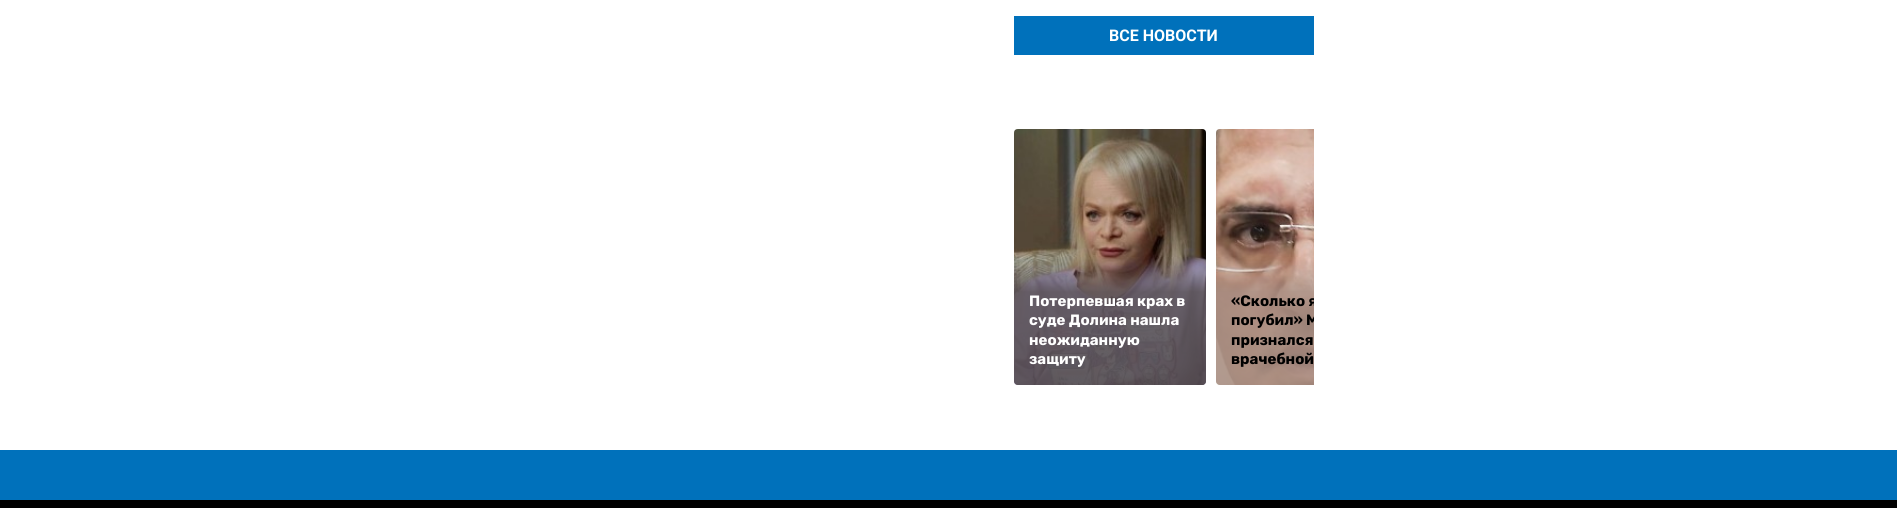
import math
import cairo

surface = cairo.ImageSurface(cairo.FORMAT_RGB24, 1897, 508)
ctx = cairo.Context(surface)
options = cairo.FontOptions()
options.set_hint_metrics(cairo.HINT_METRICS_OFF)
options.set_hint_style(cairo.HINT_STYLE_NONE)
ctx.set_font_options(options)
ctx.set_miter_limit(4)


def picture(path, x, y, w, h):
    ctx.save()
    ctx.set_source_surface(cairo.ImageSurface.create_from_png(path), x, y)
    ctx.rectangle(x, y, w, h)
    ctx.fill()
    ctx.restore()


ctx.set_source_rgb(1, 1, 1)
ctx.paint()
ctx.set_source_rgb(0, 0.443, 0.733)
ctx.rectangle(1014, 16, 300, 39)
ctx.fill()
ctx.select_font_face("Roboto", cairo.FONT_SLANT_NORMAL, cairo.FONT_WEIGHT_BOLD)
ctx.set_font_size(16)
ctx.set_source_rgb(1, 1, 1)
ctx.move_to(1109, 41)
ctx.show_text("ВСЕ НОВОСТИ")
picture("img1.png", 1014, 129, 192, 256)
ctx.set_source_rgba(0.345, 0.314, 0.333, 0.85)
ctx.new_path()
ctx.move_to(1014, 292)
ctx.line_to(1206, 292)
ctx.line_to(1206, 381)
ctx.curve_to(1206, 383, 1204, 385, 1202, 385)
ctx.line_to(1018, 385)
ctx.curve_to(1016, 385, 1014, 383, 1014, 381)
ctx.close_path()
ctx.fill()
ctx.select_font_face("Rubik", cairo.FONT_SLANT_NORMAL, cairo.FONT_WEIGHT_BOLD)
ctx.set_font_size(15)
ctx.set_source_rgb(1, 1, 1)
ctx.move_to(1029, 306)
ctx.show_text("Потерпевшая крах в")
ctx.move_to(1029, 325)
ctx.show_text("суде Долина нашла")
ctx.move_to(1029, 345)
ctx.show_text("неожиданную")
ctx.move_to(1029, 364)
ctx.show_text("защиту")
picture("img2.png", 1216, 129, 98, 256)
ctx.set_source_rgba(0.671, 0.573, 0.525, 0.85)
ctx.new_path()
ctx.move_to(1216, 292)
ctx.line_to(1314, 292)
ctx.line_to(1314, 385)
ctx.line_to(1220, 385)
ctx.curve_to(1218, 385, 1216, 383, 1216, 381)
ctx.close_path()
ctx.fill()
ctx.save()
ctx.rectangle(1014, 129, 300, 256)
ctx.clip()
ctx.set_source_rgb(0, 0, 0)
ctx.move_to(1231, 306)
ctx.show_text("«Сколько я")
ctx.move_to(1231, 325)
ctx.show_text("погубил» М")
ctx.restore()
ctx.set_source_rgb(0, 0, 0)
ctx.move_to(1231, 345)
ctx.show_text("признался")
ctx.move_to(1231, 364)
ctx.show_text("врачебной")
ctx.rectangle(0, 500, 1897, 8)
ctx.fill()
ctx.set_source_rgb(0, 0.443, 0.733)
ctx.rectangle(0, 450, 1897, 50)
ctx.fill()
surface.write_to_png("page.png")
